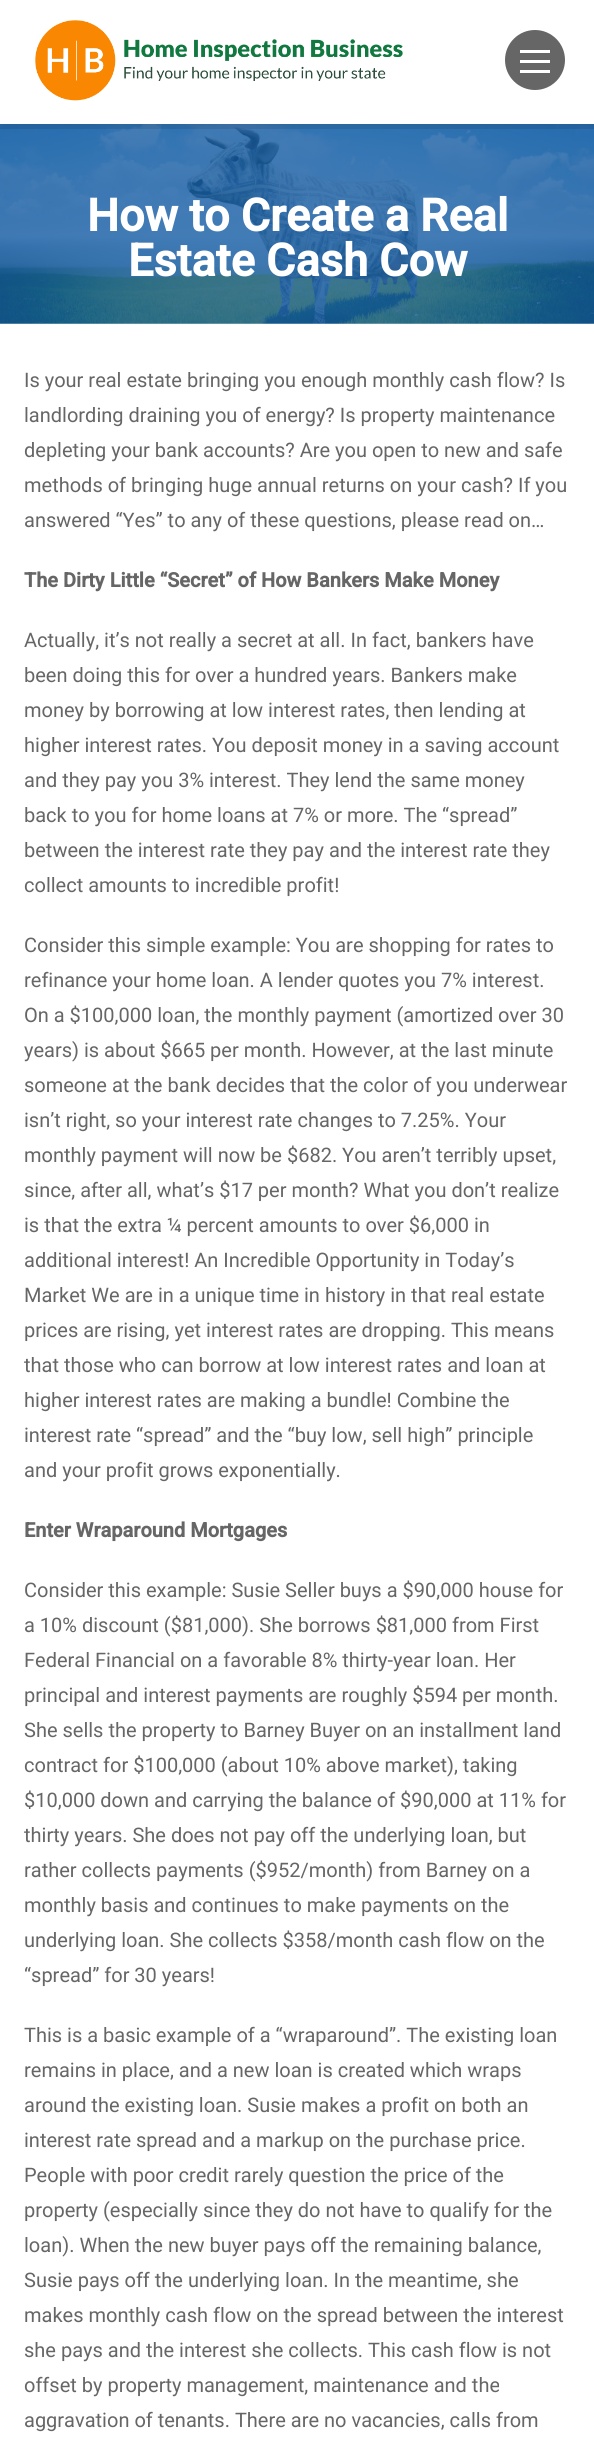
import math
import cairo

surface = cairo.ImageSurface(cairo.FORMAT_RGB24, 594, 2446)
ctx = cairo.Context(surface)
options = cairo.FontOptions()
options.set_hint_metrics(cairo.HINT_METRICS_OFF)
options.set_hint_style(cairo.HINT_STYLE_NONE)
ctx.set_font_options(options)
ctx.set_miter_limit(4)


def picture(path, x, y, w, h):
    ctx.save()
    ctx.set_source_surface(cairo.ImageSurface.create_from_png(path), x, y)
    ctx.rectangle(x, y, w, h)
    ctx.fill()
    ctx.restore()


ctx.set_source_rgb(1, 1, 1)
ctx.paint()
picture("img2.png", 0, 124, 594, 200)
ctx.set_source_rgba(0, 0, 0, 0.1)
ctx.rectangle(0, 124, 594, 5)
ctx.fill()
picture("img1.png", 35, 20, 368, 81)
ctx.set_source_rgb(0.4, 0.4, 0.4)
ctx.arc(535, 60, 30, 0, 2 * math.pi)
ctx.fill()
ctx.set_source_rgb(1, 1, 1)
ctx.rectangle(520, 60, 30, 3)
ctx.fill()
ctx.rectangle(520, 50, 30, 3)
ctx.fill()
ctx.rectangle(520, 70, 30, 3)
ctx.fill()
ctx.select_font_face("Roboto", cairo.FONT_SLANT_NORMAL, cairo.FONT_WEIGHT_BOLD)
ctx.set_font_size(45)
ctx.move_to(87, 231)
ctx.show_text("How to Create a Real")
ctx.move_to(128, 276)
ctx.show_text("Estate Cash Cow")
ctx.select_font_face("Roboto")
ctx.set_font_size(20)
ctx.set_source_rgb(0.4, 0.4, 0.4)
ctx.move_to(24, 387)
ctx.show_text("Is your real estate bringing you enough monthly cash flow? Is")
ctx.move_to(24, 422)
ctx.show_text("landlording draining you of energy? Is property maintenance")
ctx.move_to(24, 457)
ctx.show_text("depleting your bank accounts? Are you open to new and safe")
ctx.move_to(24, 492)
ctx.show_text("methods of bringing huge annual returns on your cash? If you")
ctx.move_to(24, 527)
ctx.show_text("answered “Yes” to any of these questions, please read on…")
ctx.select_font_face("Roboto", cairo.FONT_SLANT_NORMAL, cairo.FONT_WEIGHT_BOLD)
ctx.move_to(24, 587)
ctx.show_text("The Dirty Little “Secret” of How Bankers Make Money")
ctx.select_font_face("Roboto")
ctx.move_to(24, 647)
ctx.show_text("Actually, it’s not really a secret at all. In fact, bankers have")
ctx.move_to(24, 682)
ctx.show_text("been doing this for over a hundred years. Bankers make")
ctx.move_to(24, 717)
ctx.show_text("money by borrowing at low interest rates, then lending at")
ctx.move_to(24, 752)
ctx.show_text("higher interest rates. You deposit money in a saving account")
ctx.move_to(24, 787)
ctx.show_text("and they pay you 3% interest. They lend the same money")
ctx.move_to(24, 822)
ctx.show_text("back to you for home loans at 7% or more. The “spread”")
ctx.move_to(24, 857)
ctx.show_text("between the interest rate they pay and the interest rate they")
ctx.move_to(24, 892)
ctx.show_text("collect amounts to incredible profit!")
ctx.move_to(24, 952)
ctx.show_text("Consider this simple example: You are shopping for rates to")
ctx.move_to(24, 987)
ctx.show_text("refinance your home loan. A lender quotes you 7% interest.")
ctx.move_to(24, 1022)
ctx.show_text("On a $100,000 loan, the monthly payment (amortized over 30")
ctx.move_to(24, 1057)
ctx.show_text("years) is about $665 per month. However, at the last minute")
ctx.move_to(24, 1092)
ctx.show_text("someone at the bank decides that the color of you underwear")
ctx.move_to(24, 1127)
ctx.show_text("isn’t right, so your interest rate changes to 7.25%. Your")
ctx.move_to(24, 1162)
ctx.show_text("monthly payment will now be $682. You aren’t terribly upset,")
ctx.move_to(24, 1197)
ctx.show_text("since, after all, what’s $17 per month? What you don’t realize")
ctx.move_to(24, 1232)
ctx.show_text("is that the extra ¼ percent amounts to over $6,000 in")
ctx.move_to(24, 1267)
ctx.show_text("additional interest! An Incredible Opportunity in Today’s")
ctx.move_to(24, 1302)
ctx.show_text("Market We are in a unique time in history in that real estate")
ctx.move_to(24, 1337)
ctx.show_text("prices are rising, yet interest rates are dropping. This means")
ctx.move_to(24, 1372)
ctx.show_text("that those who can borrow at low interest rates and loan at")
ctx.move_to(24, 1407)
ctx.show_text("higher interest rates are making a bundle! Combine the")
ctx.move_to(24, 1442)
ctx.show_text("interest rate “spread” and the “buy low, sell high” principle")
ctx.move_to(24, 1477)
ctx.show_text("and your profit grows exponentially.")
ctx.select_font_face("Roboto", cairo.FONT_SLANT_NORMAL, cairo.FONT_WEIGHT_BOLD)
ctx.move_to(24, 1537)
ctx.show_text("Enter Wraparound Mortgages")
ctx.select_font_face("Roboto")
ctx.move_to(24, 1597)
ctx.show_text("Consider this example: Susie Seller buys a $90,000 house for")
ctx.move_to(24, 1632)
ctx.show_text("a 10% discount ($81,000). She borrows $81,000 from First")
ctx.move_to(24, 1667)
ctx.show_text("Federal Financial on a favorable 8% thirty-year loan. Her")
ctx.move_to(24, 1702)
ctx.show_text("principal and interest payments are roughly $594 per month.")
ctx.move_to(24, 1737)
ctx.show_text("She sells the property to Barney Buyer on an installment land")
ctx.move_to(24, 1772)
ctx.show_text("contract for $100,000 (about 10% above market), taking")
ctx.move_to(24, 1807)
ctx.show_text("$10,000 down and carrying the balance of $90,000 at 11% for")
ctx.move_to(24, 1842)
ctx.show_text("thirty years. She does not pay off the underlying loan, but")
ctx.move_to(24, 1877)
ctx.show_text("rather collects payments ($952/month) from Barney on a")
ctx.move_to(24, 1912)
ctx.show_text("monthly basis and continues to make payments on the")
ctx.move_to(24, 1947)
ctx.show_text("underlying loan. She collects $358/month cash flow on the")
ctx.move_to(24, 1982)
ctx.show_text("“spread” for 30 years!")
ctx.move_to(24, 2042)
ctx.show_text("This is a basic example of a “wraparound”. The existing loan")
ctx.move_to(24, 2077)
ctx.show_text("remains in place, and a new loan is created which wraps")
ctx.move_to(24, 2112)
ctx.show_text("around the existing loan. Susie makes a profit on both an")
ctx.move_to(24, 2147)
ctx.show_text("interest rate spread and a markup on the purchase price.")
ctx.move_to(24, 2182)
ctx.show_text("People with poor credit rarely question the price of the")
ctx.move_to(24, 2217)
ctx.show_text("property (especially since they do not have to qualify for the")
ctx.move_to(24, 2252)
ctx.show_text("loan). When the new buyer pays off the remaining balance,")
ctx.move_to(24, 2287)
ctx.show_text("Susie pays off the underlying loan. In the meantime, she")
ctx.move_to(24, 2322)
ctx.show_text("makes monthly cash flow on the spread between the interest")
ctx.move_to(24, 2357)
ctx.show_text("she pays and the interest she collects. This cash flow is not")
ctx.move_to(24, 2392)
ctx.show_text("offset by property management, maintenance and the")
ctx.move_to(24, 2427)
ctx.show_text("aggravation of tenants. There are no vacancies, calls from")
surface.write_to_png("page.png")
